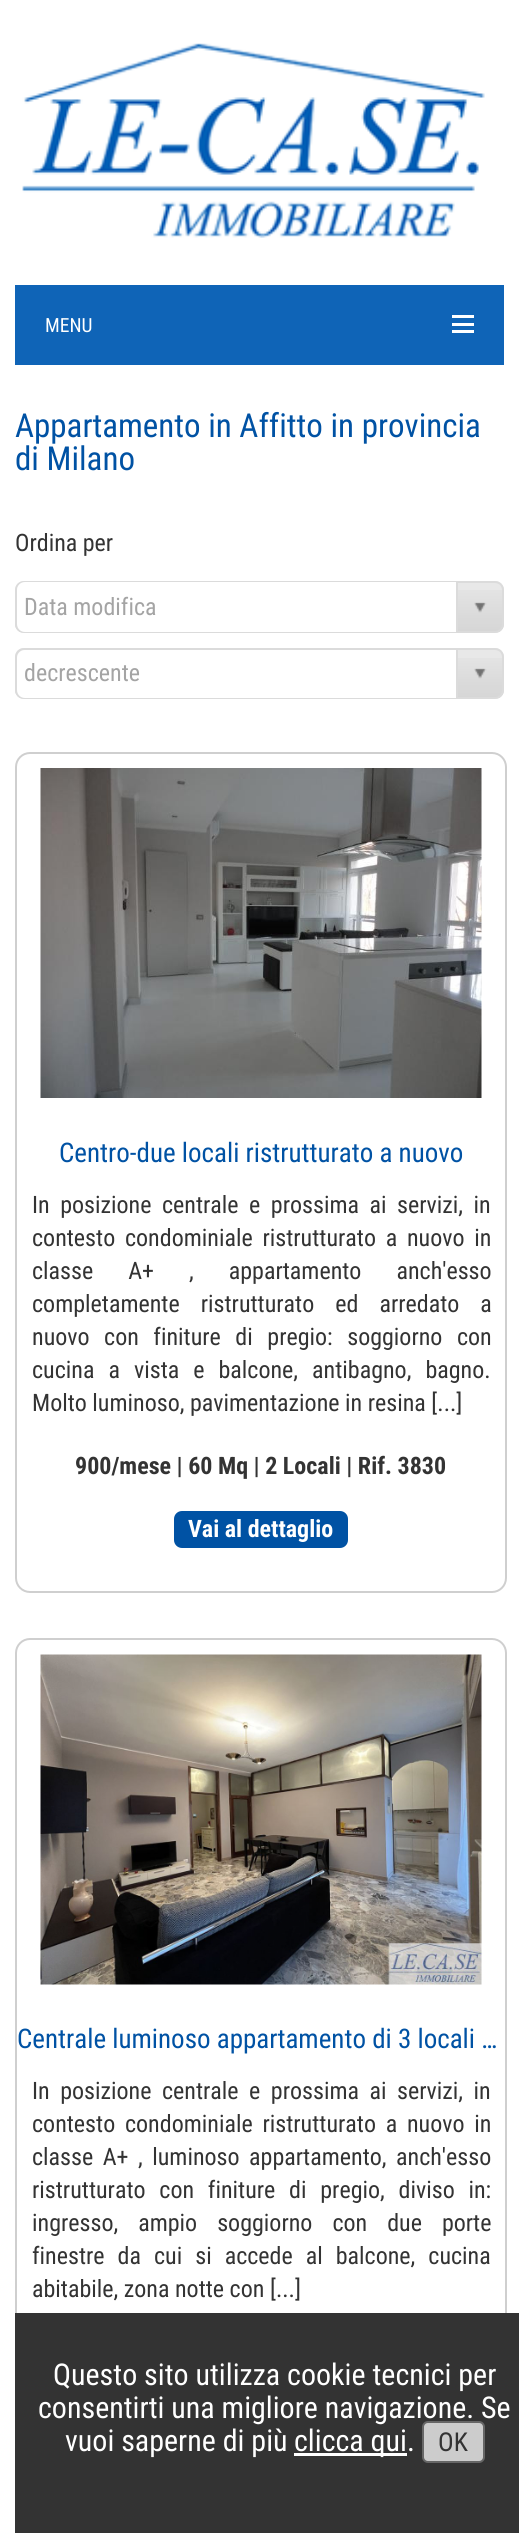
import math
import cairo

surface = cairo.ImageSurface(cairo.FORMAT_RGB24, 519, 2533)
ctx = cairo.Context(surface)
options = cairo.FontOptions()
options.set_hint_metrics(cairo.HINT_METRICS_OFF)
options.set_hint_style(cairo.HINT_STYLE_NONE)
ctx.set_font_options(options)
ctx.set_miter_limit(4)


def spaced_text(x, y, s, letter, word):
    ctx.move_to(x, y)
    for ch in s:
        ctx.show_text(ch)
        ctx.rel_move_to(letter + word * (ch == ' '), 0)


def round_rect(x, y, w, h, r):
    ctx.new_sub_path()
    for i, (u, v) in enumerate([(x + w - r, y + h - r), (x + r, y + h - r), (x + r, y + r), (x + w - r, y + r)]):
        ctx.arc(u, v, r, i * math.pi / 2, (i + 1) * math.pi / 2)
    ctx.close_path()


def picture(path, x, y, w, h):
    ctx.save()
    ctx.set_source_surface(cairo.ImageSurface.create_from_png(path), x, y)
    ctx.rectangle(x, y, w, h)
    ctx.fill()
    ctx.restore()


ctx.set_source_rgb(1, 1, 1)
ctx.paint()
picture("img1.png", 22, 43, 463, 195)
ctx.set_source_rgb(0.059, 0.392, 0.718)
ctx.rectangle(15, 285, 489, 80)
ctx.fill()
ctx.set_source_rgb(1, 1, 1)
ctx.rectangle(452, 315, 22, 3)
ctx.fill()
ctx.select_font_face("Roboto Condensed")
ctx.set_font_size(19.5)
ctx.move_to(45, 332)
ctx.show_text("MENU")
ctx.rectangle(452, 323, 22, 3)
ctx.fill()
ctx.rectangle(452, 330, 22, 3)
ctx.fill()
ctx.set_font_size(33)
ctx.set_source_rgb(0, 0.322, 0.643)
ctx.move_to(15, 437)
ctx.show_text("Appartamento in Affitto in provincia")
ctx.move_to(15, 470)
ctx.show_text("di Milano")
ctx.set_font_size(24)
ctx.set_source_rgb(0.2, 0.2, 0.2)
ctx.move_to(15, 551)
ctx.show_text("Ordina per")
ctx.set_source_rgb(0.91, 0.91, 0.91)
round_rect(15, 581, 489, 52, 9)
ctx.fill()
ctx.save()
round_rect(15, 581, 489, 52, 9)
ctx.clip()
gradient = cairo.LinearGradient(260, 582, 260, 632)
gradient.add_color_stop_rgba(0, 0, 0, 0, 0.01)
gradient.add_color_stop_rgba(1, 0, 0, 0, 0.08)
ctx.set_source(gradient)
ctx.rectangle(15, 590, 489, 42)
ctx.fill()
ctx.restore()
round_rect(16, 582, 487, 50, 8)
ctx.set_source_rgb(0.859, 0.859, 0.859)
ctx.stroke()
ctx.set_source_rgb(1, 1, 1)
ctx.new_path()
ctx.move_to(25, 582)
ctx.line_to(458, 582)
ctx.line_to(458, 632)
ctx.line_to(25, 632)
ctx.curve_to(20.5, 632, 17, 628.5, 17, 624)
ctx.line_to(17, 590)
ctx.curve_to(17, 585.5, 20.5, 582, 25, 582)
ctx.close_path()
ctx.fill()
ctx.set_source_rgb(0.643, 0.643, 0.643)
ctx.move_to(24, 615)
ctx.show_text("Data modifica")
ctx.set_source_rgb(0.859, 0.859, 0.859)
ctx.rectangle(456, 582, 2, 50)
ctx.fill()
picture("img2.png", 474, 602, 13, 11)
ctx.set_source_rgb(0.91, 0.91, 0.91)
round_rect(15, 648, 489, 51, 9)
ctx.fill()
ctx.save()
round_rect(15, 648, 489, 51, 9)
ctx.clip()
gradient = cairo.LinearGradient(260, 650, 260, 698)
gradient.add_color_stop_rgba(0, 0, 0, 0, 0.01)
gradient.add_color_stop_rgba(1, 0, 0, 0, 0.08)
ctx.set_source(gradient)
ctx.rectangle(15, 658, 489, 40)
ctx.fill()
ctx.restore()
round_rect(16, 649, 487, 49, 8)
ctx.set_source_rgb(0.859, 0.859, 0.859)
ctx.stroke()
ctx.set_source_rgb(1, 1, 1)
ctx.new_path()
ctx.move_to(25, 650)
ctx.line_to(458, 650)
ctx.line_to(458, 698)
ctx.line_to(25, 698)
ctx.curve_to(20.5, 698, 17, 694.5, 17, 690)
ctx.line_to(17, 658)
ctx.curve_to(17, 653.5, 20.5, 650, 25, 650)
ctx.close_path()
ctx.fill()
ctx.set_source_rgb(0.643, 0.643, 0.643)
ctx.move_to(24, 681)
ctx.show_text("decrescente")
ctx.set_source_rgb(0.859, 0.859, 0.859)
ctx.rectangle(456, 650, 2, 48)
ctx.fill()
picture("img3.png", 474, 668, 13, 11)
round_rect(16, 753, 490, 839, 14)
ctx.set_source_rgb(0.812, 0.812, 0.812)
ctx.stroke()
picture("img4.png", 40, 768, 442, 330)
ctx.set_font_size(27)
ctx.set_source_rgb(0, 0.322, 0.643)
ctx.move_to(59, 1162)
ctx.show_text("Centro-due locali ristrutturato a nuovo")
ctx.set_font_size(24)
ctx.set_source_rgb(0.2, 0.2, 0.2)
spaced_text(32, 1213, "In posizione centrale e prossima ai servizi, in", 0, 5)
spaced_text(32, 1246, "contesto condominiale ristrutturato a nuovo in", 0, 4.25)
spaced_text(32, 1279, "classe A+ , appartamento anch'esso", 0, 29.5)
spaced_text(32, 1312, "completamente ristrutturato ed arredato a", 0, 15.5)
spaced_text(32, 1345, "nuovo con finiture di pregio: soggiorno con", 0, 9)
spaced_text(32, 1378, "cucina a vista e balcone, antibagno, bagno.", 0, 8.5)
ctx.move_to(32, 1411)
ctx.show_text("Molto luminoso, pavimentazione in resina [...]")
ctx.select_font_face("Roboto Condensed", cairo.FONT_SLANT_NORMAL, cairo.FONT_WEIGHT_BOLD)
ctx.move_to(75, 1474)
ctx.show_text("900/mese | 60 Mq | 2 Locali | Rif. 3830")
ctx.set_source_rgb(0, 0.322, 0.643)
round_rect(174, 1511, 174, 37, 8)
ctx.fill()
ctx.set_source_rgb(1, 1, 1)
ctx.move_to(188, 1537)
ctx.show_text("Vai al dettaglio")
round_rect(16, 1639, 490, 840, 14)
ctx.set_source_rgb(0.812, 0.812, 0.812)
ctx.stroke()
picture("img5.png", 40, 1654, 442, 331)
ctx.select_font_face("Roboto Condensed")
ctx.set_font_size(27)
ctx.set_source_rgb(0, 0.322, 0.643)
ctx.move_to(17, 2048)
ctx.show_text("Centrale luminoso appartamento di 3 locali …")
ctx.set_font_size(24)
ctx.set_source_rgb(0.2, 0.2, 0.2)
spaced_text(32, 2099, "In posizione centrale e prossima ai servizi, in", 0, 5)
spaced_text(32, 2132, "contesto condominiale ristrutturato a nuovo in", 0, 4.25)
spaced_text(32, 2165, "classe A+ , luminoso appartamento, anch'esso", 0, 4)
spaced_text(32, 2198, "ristrutturato con finiture di pregio, diviso in:", 0, 8.25)
spaced_text(32, 2231, "ingresso, ampio soggiorno con due porte", 0, 14.5)
spaced_text(32, 2264, "finestre da cui si accede al balcone, cucina", 0, 7.5)
ctx.move_to(32, 2297)
ctx.show_text("abitabile, zona notte con [...]")
ctx.rectangle(15, 2313, 504, 220)
ctx.fill()
ctx.set_font_size(30)
ctx.set_source_rgb(1, 1, 1)
ctx.move_to(53, 2385)
ctx.show_text("Questo sito utilizza cookie tecnici per")
ctx.move_to(38, 2418)
ctx.show_text("consentirti una migliore navigazione. Se")
ctx.move_to(65, 2451)
ctx.show_text("vuoi saperne di più")
ctx.rectangle(294, 2453, 113, 3)
ctx.fill()
ctx.move_to(294, 2451)
ctx.show_text("clicca qui.")
ctx.set_source_rgb(0.8, 0.8, 0.8)
round_rect(423, 2422, 61, 40, 5)
ctx.fill_preserve()
ctx.set_source_rgb(0.4, 0.4, 0.4)
ctx.stroke()
ctx.set_font_size(26)
ctx.set_source_rgb(0.2, 0.2, 0.2)
ctx.move_to(438, 2451)
ctx.show_text("OK")
surface.write_to_png("page.png")
